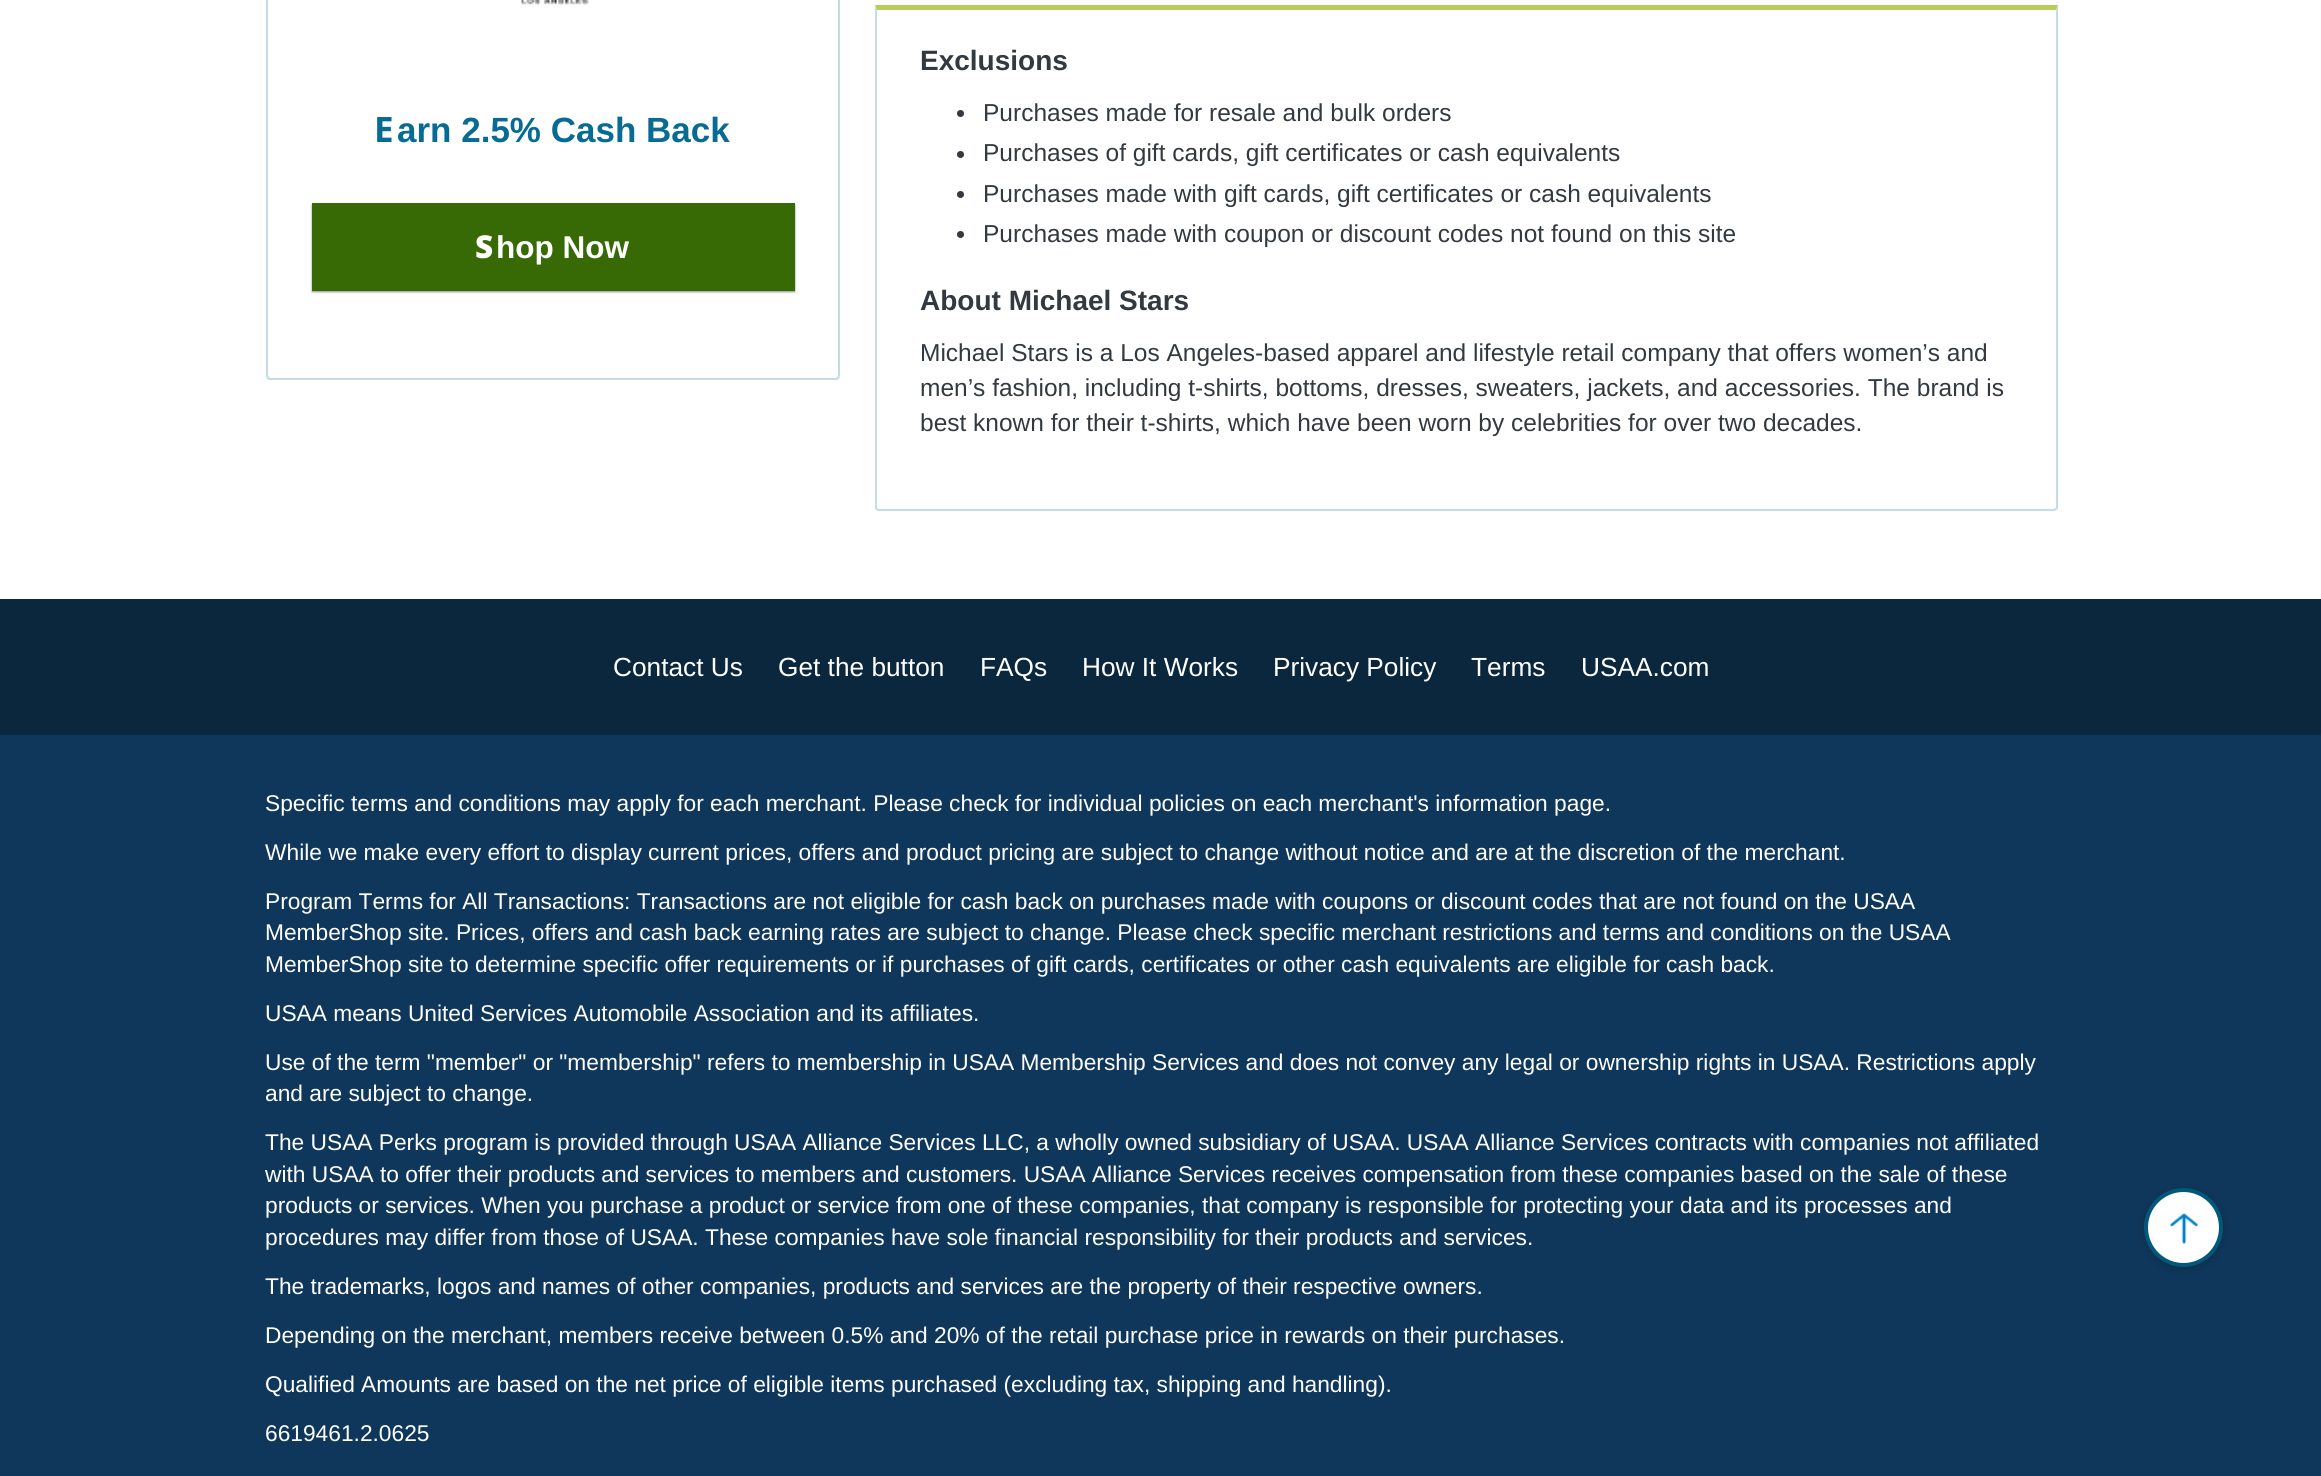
import math
import cairo

surface = cairo.ImageSurface(cairo.FORMAT_RGB24, 2321, 1476)
ctx = cairo.Context(surface)
options = cairo.FontOptions()
options.set_hint_metrics(cairo.HINT_METRICS_OFF)
options.set_hint_style(cairo.HINT_STYLE_NONE)
ctx.set_font_options(options)
ctx.set_miter_limit(4)


def round_rect(x, y, w, h, r):
    ctx.new_sub_path()
    for i, (u, v) in enumerate([(x + w - r, y + h - r), (x + r, y + h - r), (x + r, y + r), (x + w - r, y + r)]):
        ctx.arc(u, v, r, i * math.pi / 2, (i + 1) * math.pi / 2)
    ctx.close_path()


def shadow(x, y, w, h, r, blur, alpha):
    ctx.push_group_with_content(cairo.CONTENT_ALPHA)
    ctx.set_operator(cairo.OPERATOR_SOURCE)
    for i in range(15, -16, -2):
        e = blur * i / 6
        if min(w, h) + 2 * e > 0:
            ctx.set_source_rgba(0, 0, 0, alpha * math.erfc((i - 1) / 8.5) / 2)
            round_rect(x - e, y - e, w + 2 * e, h + 2 * e, max(0, min(r + e + blur * .6, min(w, h) / 2 + e)))
            ctx.fill()
    ctx.mask(ctx.pop_group())


def picture(path, x, y, w, h):
    ctx.save()
    ctx.set_source_surface(cairo.ImageSurface.create_from_png(path), x, y)
    ctx.rectangle(x, y, w, h)
    ctx.fill()
    ctx.restore()


ctx.set_source_rgb(1, 1, 1)
ctx.paint()
ctx.set_source_rgb(0.761, 0.863, 0.91)
ctx.new_path()
ctx.move_to(840, -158)
ctx.line_to(838, -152)
ctx.line_to(838, 376)
ctx.line_to(837, 377)
ctx.line_to(839, 379)
ctx.line_to(840, 376)
ctx.close_path()
ctx.fill()
ctx.new_path()
ctx.move_to(269, 380)
ctx.line_to(267, 379)
ctx.line_to(269, 377)
ctx.line_to(270, 378)
ctx.line_to(836, 378)
ctx.line_to(837, 377)
ctx.line_to(839, 379)
ctx.line_to(837, 380)
ctx.close_path()
ctx.fill()
ctx.new_path()
ctx.move_to(266, -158)
ctx.line_to(266, 376)
ctx.line_to(267, 379)
ctx.line_to(269, 377)
ctx.line_to(268, 376)
ctx.line_to(268, -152)
ctx.close_path()
ctx.fill()
picture("img1.png", 521, 0, 68, 6)
ctx.select_font_face("Noto Sans", cairo.FONT_SLANT_NORMAL, cairo.FONT_WEIGHT_BOLD)
ctx.set_font_size(35)
ctx.set_source_rgb(0.031, 0.42, 0.58)
ctx.move_to(374, 142)
ctx.show_text("E")
ctx.select_font_face("Liberation Sans", cairo.FONT_SLANT_NORMAL, cairo.FONT_WEIGHT_BOLD)
ctx.move_to(397, 142)
ctx.show_text("arn 2.5% Cash Back")
ctx.set_source_rgb(0.561, 0.561, 0.561)
shadow(312, 205, 483, 87, 0, 1, 1)
ctx.set_source_rgb(0.216, 0.416, 0.016)
ctx.rectangle(312, 203, 483, 88)
ctx.fill()
ctx.select_font_face("Noto Sans Black")
ctx.set_font_size(31.5)
ctx.set_source_rgb(1, 1, 1)
ctx.move_to(475, 258)
ctx.show_text("S")
ctx.select_font_face("Liberation Sans", cairo.FONT_SLANT_NORMAL, cairo.FONT_WEIGHT_BOLD)
ctx.move_to(496, 258)
ctx.show_text("hop Now")
ctx.set_source_rgb(0.725, 0.808, 0.345)
ctx.new_path()
ctx.move_to(877, 10)
ctx.line_to(2056, 10)
ctx.line_to(2056, 11)
ctx.line_to(2058, 5)
ctx.line_to(875, 5)
ctx.line_to(877, 11)
ctx.close_path()
ctx.fill()
ctx.set_source_rgb(0.761, 0.863, 0.91)
ctx.new_path()
ctx.move_to(2058, 5)
ctx.line_to(2056, 11)
ctx.line_to(2056, 508)
ctx.line_to(2055, 508)
ctx.line_to(2057, 510)
ctx.line_to(2058, 508)
ctx.close_path()
ctx.fill()
ctx.new_path()
ctx.move_to(878, 511)
ctx.line_to(2054, 511)
ctx.line_to(2057, 510)
ctx.line_to(2055, 508)
ctx.line_to(2054, 509)
ctx.line_to(878, 509)
ctx.line_to(878, 508)
ctx.line_to(876, 510)
ctx.close_path()
ctx.fill()
ctx.new_path()
ctx.move_to(875, 5)
ctx.line_to(875, 508)
ctx.line_to(876, 510)
ctx.line_to(878, 508)
ctx.line_to(877, 508)
ctx.line_to(877, 11)
ctx.close_path()
ctx.fill()
ctx.set_font_size(28)
ctx.set_source_rgb(0.2, 0.224, 0.251)
ctx.move_to(920, 70)
ctx.show_text("Exclusions")
ctx.new_path()
ctx.arc(960.5, 113.5, 3.5, 0, 2 * math.pi)
ctx.fill()
ctx.select_font_face("Liberation Sans")
ctx.set_font_size(24.5)
ctx.move_to(983, 121)
ctx.show_text("Purchases made for resale and bulk orders")
ctx.new_path()
ctx.arc(960.5, 154.5, 3.5, 0, 2 * math.pi)
ctx.fill()
ctx.move_to(983, 161)
ctx.show_text("Purchases of gift cards, gift certificates or cash equivalents")
ctx.new_path()
ctx.arc(960.5, 194.5, 3.5, 0, 2 * math.pi)
ctx.fill()
ctx.move_to(983, 202)
ctx.show_text("Purchases made with gift cards, gift certificates or cash equivalents")
ctx.new_path()
ctx.arc(960.5, 234.5, 3.5, 0, 2 * math.pi)
ctx.fill()
ctx.move_to(983, 242)
ctx.show_text("Purchases made with coupon or discount codes not found on this site")
ctx.select_font_face("Liberation Sans", cairo.FONT_SLANT_NORMAL, cairo.FONT_WEIGHT_BOLD)
ctx.set_font_size(28)
ctx.move_to(920, 310)
ctx.show_text("About Michael Stars")
ctx.select_font_face("Liberation Sans")
ctx.set_font_size(24.5)
ctx.move_to(920, 361)
ctx.show_text("Michael Stars is a Los Angeles-based apparel and lifestyle retail company that offers women’s and")
ctx.move_to(920, 396)
ctx.show_text("men’s fashion, including t-shirts, bottoms, dresses, sweaters, jackets, and accessories. The brand is")
ctx.move_to(920, 431)
ctx.show_text("best known for their t-shirts, which have been worn by celebrities for over two decades.")
ctx.set_source_rgb(0.059, 0.216, 0.357)
ctx.rectangle(0, 735, 2321, 741)
ctx.fill()
ctx.set_source_rgb(0.043, 0.153, 0.239)
ctx.rectangle(0, 599, 2321, 136)
ctx.fill()
ctx.set_font_size(26.25)
ctx.set_source_rgb(1, 1, 1)
ctx.move_to(613, 676)
ctx.show_text("Contact Us")
ctx.move_to(778, 676)
ctx.show_text("Get the button")
ctx.move_to(980, 676)
ctx.show_text("FAQs")
ctx.move_to(1082, 676)
ctx.show_text("How It Works")
ctx.move_to(1273, 676)
ctx.show_text("Privacy Policy")
ctx.move_to(1471, 676)
ctx.show_text("Terms")
ctx.move_to(1581, 676)
ctx.show_text("USAA.com")
ctx.set_font_size(22.75)
ctx.move_to(265, 811)
ctx.show_text("Specific terms and conditions may apply for each merchant. Please check for individual policies on each merchant's information page.")
ctx.move_to(265, 860)
ctx.show_text("While we make every effort to display current prices, offers and product pricing are subject to change without notice and are at the discretion of the merchant.")
ctx.move_to(265, 909)
ctx.show_text("Program Terms for All Transactions: Transactions are not eligible for cash back on purchases made with coupons or discount codes that are not found on the USAA")
ctx.move_to(265, 940)
ctx.show_text("MemberShop site. Prices, offers and cash back earning rates are subject to change. Please check specific merchant restrictions and terms and conditions on the USAA")
ctx.move_to(265, 972)
ctx.show_text("MemberShop site to determine specific offer requirements or if purchases of gift cards, certificates or other cash equivalents are eligible for cash back.")
ctx.move_to(265, 1021)
ctx.show_text("USAA means United Services Automobile Association and its affiliates.")
ctx.move_to(265, 1070)
ctx.show_text("Use of the term \"member\" or \"membership\" refers to membership in USAA Membership Services and does not convey any legal or ownership rights in USAA. Restrictions apply")
ctx.move_to(265, 1101)
ctx.show_text("and are subject to change.")
ctx.move_to(265, 1150)
ctx.show_text("The USAA Perks program is provided through USAA Alliance Services LLC, a wholly owned subsidiary of USAA. USAA Alliance Services contracts with companies not affiliated")
ctx.move_to(265, 1182)
ctx.show_text("with USAA to offer their products and services to members and customers. USAA Alliance Services receives compensation from these companies based on the sale of these")
ctx.move_to(265, 1213)
ctx.show_text("products or services. When you purchase a product or service from one of these companies, that company is responsible for protecting your data and its processes and")
ctx.move_to(265, 1245)
ctx.show_text("procedures may differ from those of USAA. These companies have sole financial responsibility for their products and services.")
ctx.move_to(265, 1294)
ctx.show_text("The trademarks, logos and names of other companies, products and services are the property of their respective owners.")
ctx.move_to(265, 1343)
ctx.show_text("Depending on the merchant, members receive between 0.5% and 20% of the retail purchase price in rewards on their purchases.")
ctx.move_to(265, 1392)
ctx.show_text("Qualified Amounts are based on the net price of eligible items purchased (excluding tax, shipping and handling).")
ctx.move_to(265, 1441)
ctx.show_text("6619461.2.0625")
ctx.set_source_rgb(0, 0, 0)
shadow(2144, 1190, 79, 79, 39.5, 4.5, 0.2)
ctx.set_source_rgb(1, 1, 1)
ctx.arc(2183.5, 1227.5, 37.5, 0, 2 * math.pi)
ctx.fill_preserve()
ctx.set_source_rgb(0.004, 0.345, 0.478)
ctx.set_line_width(4)
ctx.stroke()
picture("img2.png", 2169, 1213, 29, 31)
surface.write_to_png("page.png")
